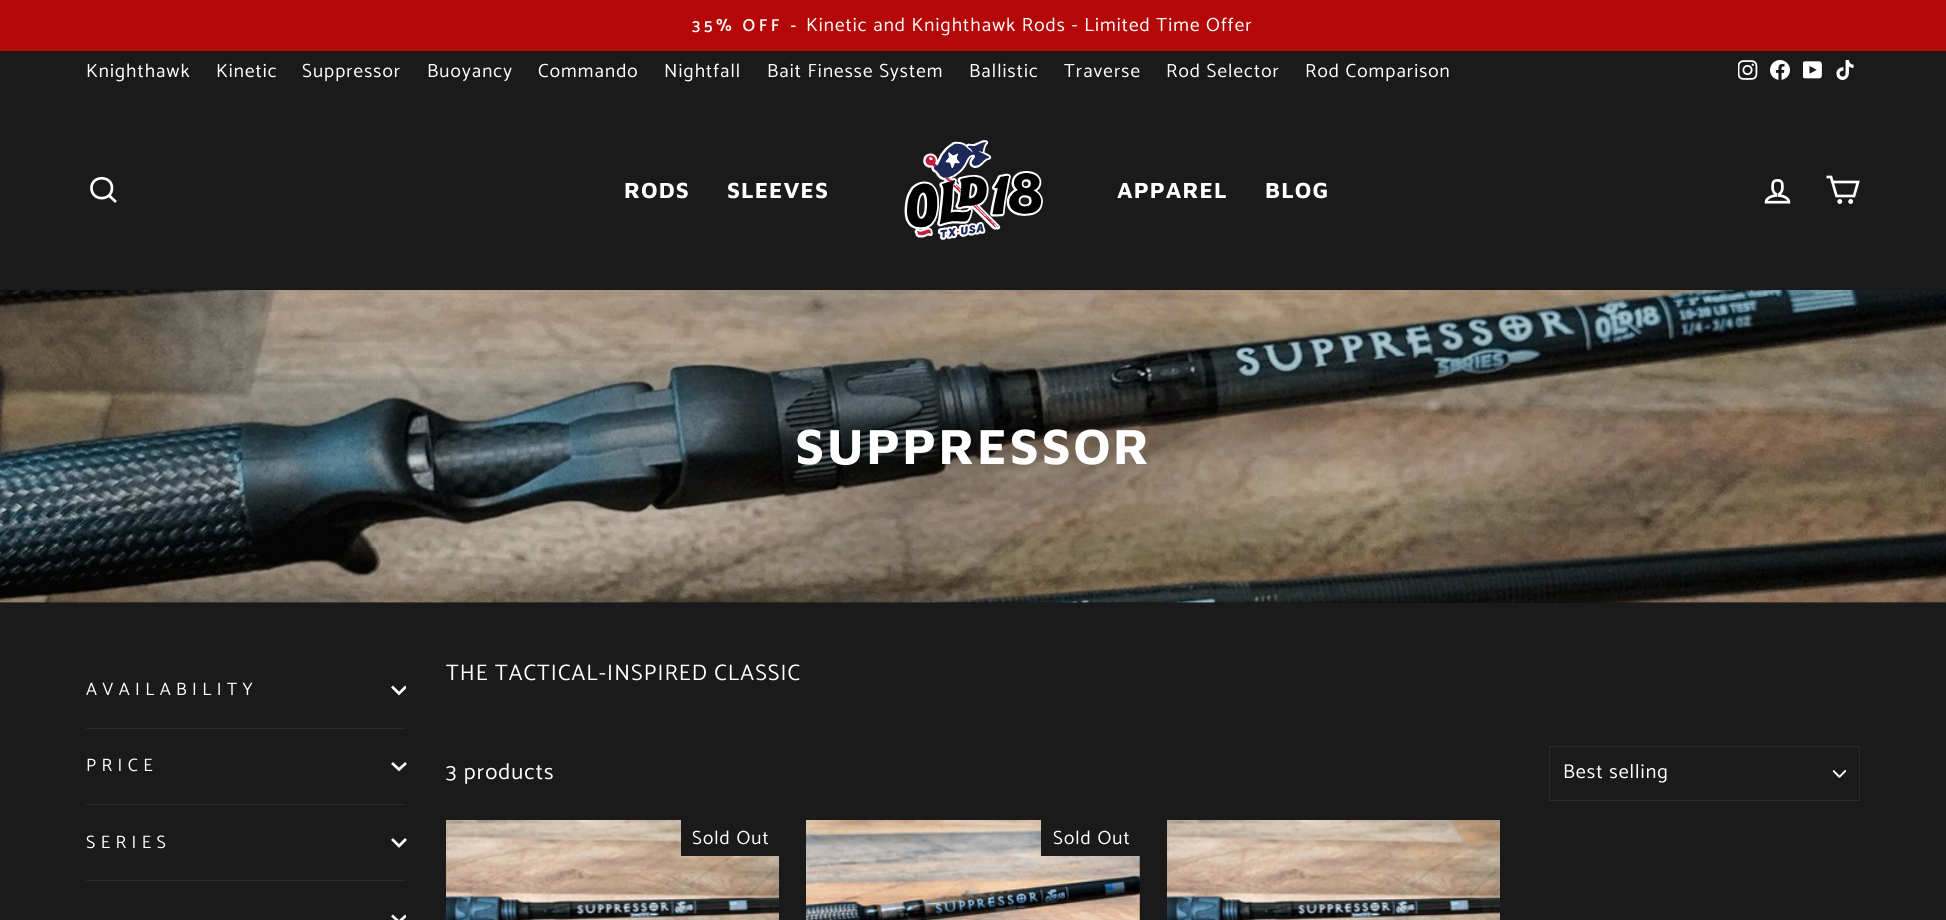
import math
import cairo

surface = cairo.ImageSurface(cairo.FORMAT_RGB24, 1946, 920)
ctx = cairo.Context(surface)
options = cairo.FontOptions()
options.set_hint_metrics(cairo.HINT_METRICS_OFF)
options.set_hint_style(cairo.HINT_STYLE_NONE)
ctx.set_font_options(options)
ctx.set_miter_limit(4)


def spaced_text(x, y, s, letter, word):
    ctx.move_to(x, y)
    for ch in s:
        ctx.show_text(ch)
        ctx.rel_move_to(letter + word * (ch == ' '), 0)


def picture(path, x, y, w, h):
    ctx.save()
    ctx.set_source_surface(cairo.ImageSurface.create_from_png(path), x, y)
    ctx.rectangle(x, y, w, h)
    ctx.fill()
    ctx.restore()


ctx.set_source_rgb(0.102, 0.102, 0.102)
ctx.paint()
ctx.set_source_rgb(0.71, 0.031, 0.031)
ctx.rectangle(0, 0, 1946, 51)
ctx.fill()
ctx.select_font_face("Catamaran SemiBold")
ctx.set_font_size(17.25)
ctx.set_source_rgb(1, 1, 1)
spaced_text(692, 31, "35% OFF -", 3.5, 0)
ctx.select_font_face("Catamaran")
ctx.set_font_size(19.1)
spaced_text(806, 31, "Kinetic and Knighthawk Rods - Limited Time Offer", 1.1, 0)
spaced_text(86, 77, "Knighthawk", 1.1, 0)
spaced_text(216, 77, "Kinetic", 1.1, 0)
spaced_text(302, 77, "Suppressor", 1.1, 0)
spaced_text(427, 77, "Buoyancy", 1.1, 0)
spaced_text(538, 77, "Commando", 1.1, 0)
spaced_text(664, 77, "Nightfall", 1.1, 0)
spaced_text(767, 77, "Bait Finesse System", 1.1, 0)
spaced_text(969, 77, "Ballistic", 1.1, 0)
spaced_text(1064, 77, "Traverse", 1.1, 0)
spaced_text(1166, 77, "Rod Selector", 1.1, 0)
spaced_text(1305, 77, "Rod Comparison", 1.1, 0)
picture("img1.png", 1738, 60, 20, 20)
picture("img2.png", 1770, 60, 20, 20)
picture("img3.png", 1803, 61, 19, 18)
picture("img4.png", 1836, 60, 18, 20)
ctx.new_path()
ctx.move_to(112, 188)
ctx.curve_to(112, 201.5, 91.5, 201.5, 91.5, 188)
ctx.curve_to(91.5, 175, 112, 175, 112, 188)
ctx.close_path()
ctx.move_to(116, 202)
ctx.line_to(109, 195.5)
ctx.set_line_width(2.7)
ctx.stroke()
ctx.select_font_face("Maven Pro", cairo.FONT_SLANT_NORMAL, cairo.FONT_WEIGHT_BOLD)
ctx.set_font_size(22.5)
spaced_text(624, 198, "RODS", 1.1, 0)
spaced_text(727, 198, "SLEEVES", 1.1, 0)
picture("img5.png", 904, 140, 139, 100)
spaced_text(1117, 198, "APPAREL", 1.1, 0)
spaced_text(1265, 198, "BLOG", 1.1, 0)
picture("img6.png", 1764, 179, 27, 25)
ctx.new_path()
ctx.move_to(1832.5, 182)
ctx.line_to(1858, 182)
ctx.line_to(1854, 196)
ctx.line_to(1836.5, 196)
ctx.line_to(1831, 177)
ctx.line_to(1826.5, 177)
ctx.stroke()
ctx.arc(1839.8, 201.5, 1.1, 0, 2 * math.pi)
ctx.stroke()
ctx.arc(1850.7, 201.5, 1.1, 0, 2 * math.pi)
ctx.stroke()
ctx.set_source_rgb(0.055, 0.055, 0.055)
ctx.rectangle(0, 602, 1946, 1)
ctx.fill()
picture("img7.png", 0, 290, 1946, 313)
ctx.set_font_size(50.75)
ctx.set_source_rgb(1, 1, 1)
spaced_text(795, 464, "SUPPRESSOR", 2.5, 0)
ctx.select_font_face("Catamaran")
ctx.set_font_size(18)
spaced_text(86, 695, "AVAILABILITY", 5.4, 0)
ctx.save()
ctx.rectangle(391, 683, 15, 15)
ctx.clip()
ctx.new_path()
ctx.move_to(392, 686.5)
ctx.line_to(399, 693.5)
ctx.line_to(406, 686.5)
ctx.stroke()
ctx.restore()
ctx.set_source_rgb(0.169, 0.165, 0.153)
ctx.rectangle(86, 728, 320, 1)
ctx.fill()
ctx.set_source_rgb(1, 1, 1)
spaced_text(86, 771, "PRICE", 5.4, 0)
ctx.new_path()
ctx.move_to(392, 763)
ctx.line_to(399, 769.5)
ctx.line_to(406, 763)
ctx.stroke()
ctx.set_source_rgb(0.169, 0.165, 0.153)
ctx.rectangle(86, 804, 320, 1)
ctx.fill()
ctx.set_source_rgb(1, 1, 1)
spaced_text(86, 848, "SERIES", 5.4, 0)
ctx.new_path()
ctx.move_to(392, 839)
ctx.line_to(399, 846)
ctx.line_to(406, 839)
ctx.stroke()
ctx.set_source_rgb(0.169, 0.165, 0.153)
ctx.rectangle(86, 880, 320, 1)
ctx.fill()
ctx.save()
ctx.rectangle(391, 911, 15, 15)
ctx.clip()
ctx.new_path()
ctx.move_to(392, 915.5)
ctx.line_to(399, 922)
ctx.line_to(406, 915.5)
ctx.set_source_rgb(1, 1, 1)
ctx.stroke()
ctx.restore()
ctx.set_font_size(22.5)
ctx.set_source_rgb(1, 1, 1)
spaced_text(446, 680, "THE TACTICAL-INSPIRED CLASSIC", 1.1, 0)
spaced_text(446, 779, "3 products", 1.1, 0)
picture("img8.png", 1833, 770, 13, 8)
ctx.rectangle(1549.5, 746.5, 310, 54)
ctx.set_source_rgb(0.169, 0.165, 0.153)
ctx.set_line_width(1)
ctx.stroke()
ctx.set_font_size(20)
ctx.set_source_rgb(1, 1, 1)
spaced_text(1563, 778, "Best selling", 1, 0)
picture("img9.png", 446, 820, 333, 100)
ctx.set_source_rgb(0.102, 0.102, 0.102)
ctx.rectangle(681, 820, 98, 36)
ctx.fill()
ctx.set_font_size(19.1)
ctx.set_source_rgb(1, 1, 1)
spaced_text(692, 844, "Sold Out", 1.1, 0)
picture("img10.png", 806, 820, 334, 100)
ctx.set_source_rgb(0.102, 0.102, 0.102)
ctx.rectangle(1041, 820, 99, 36)
ctx.fill()
ctx.set_source_rgb(1, 1, 1)
spaced_text(1053, 844, "Sold Out", 1.1, 0)
picture("img11.png", 1167, 820, 333, 100)
surface.write_to_png("page.png")
